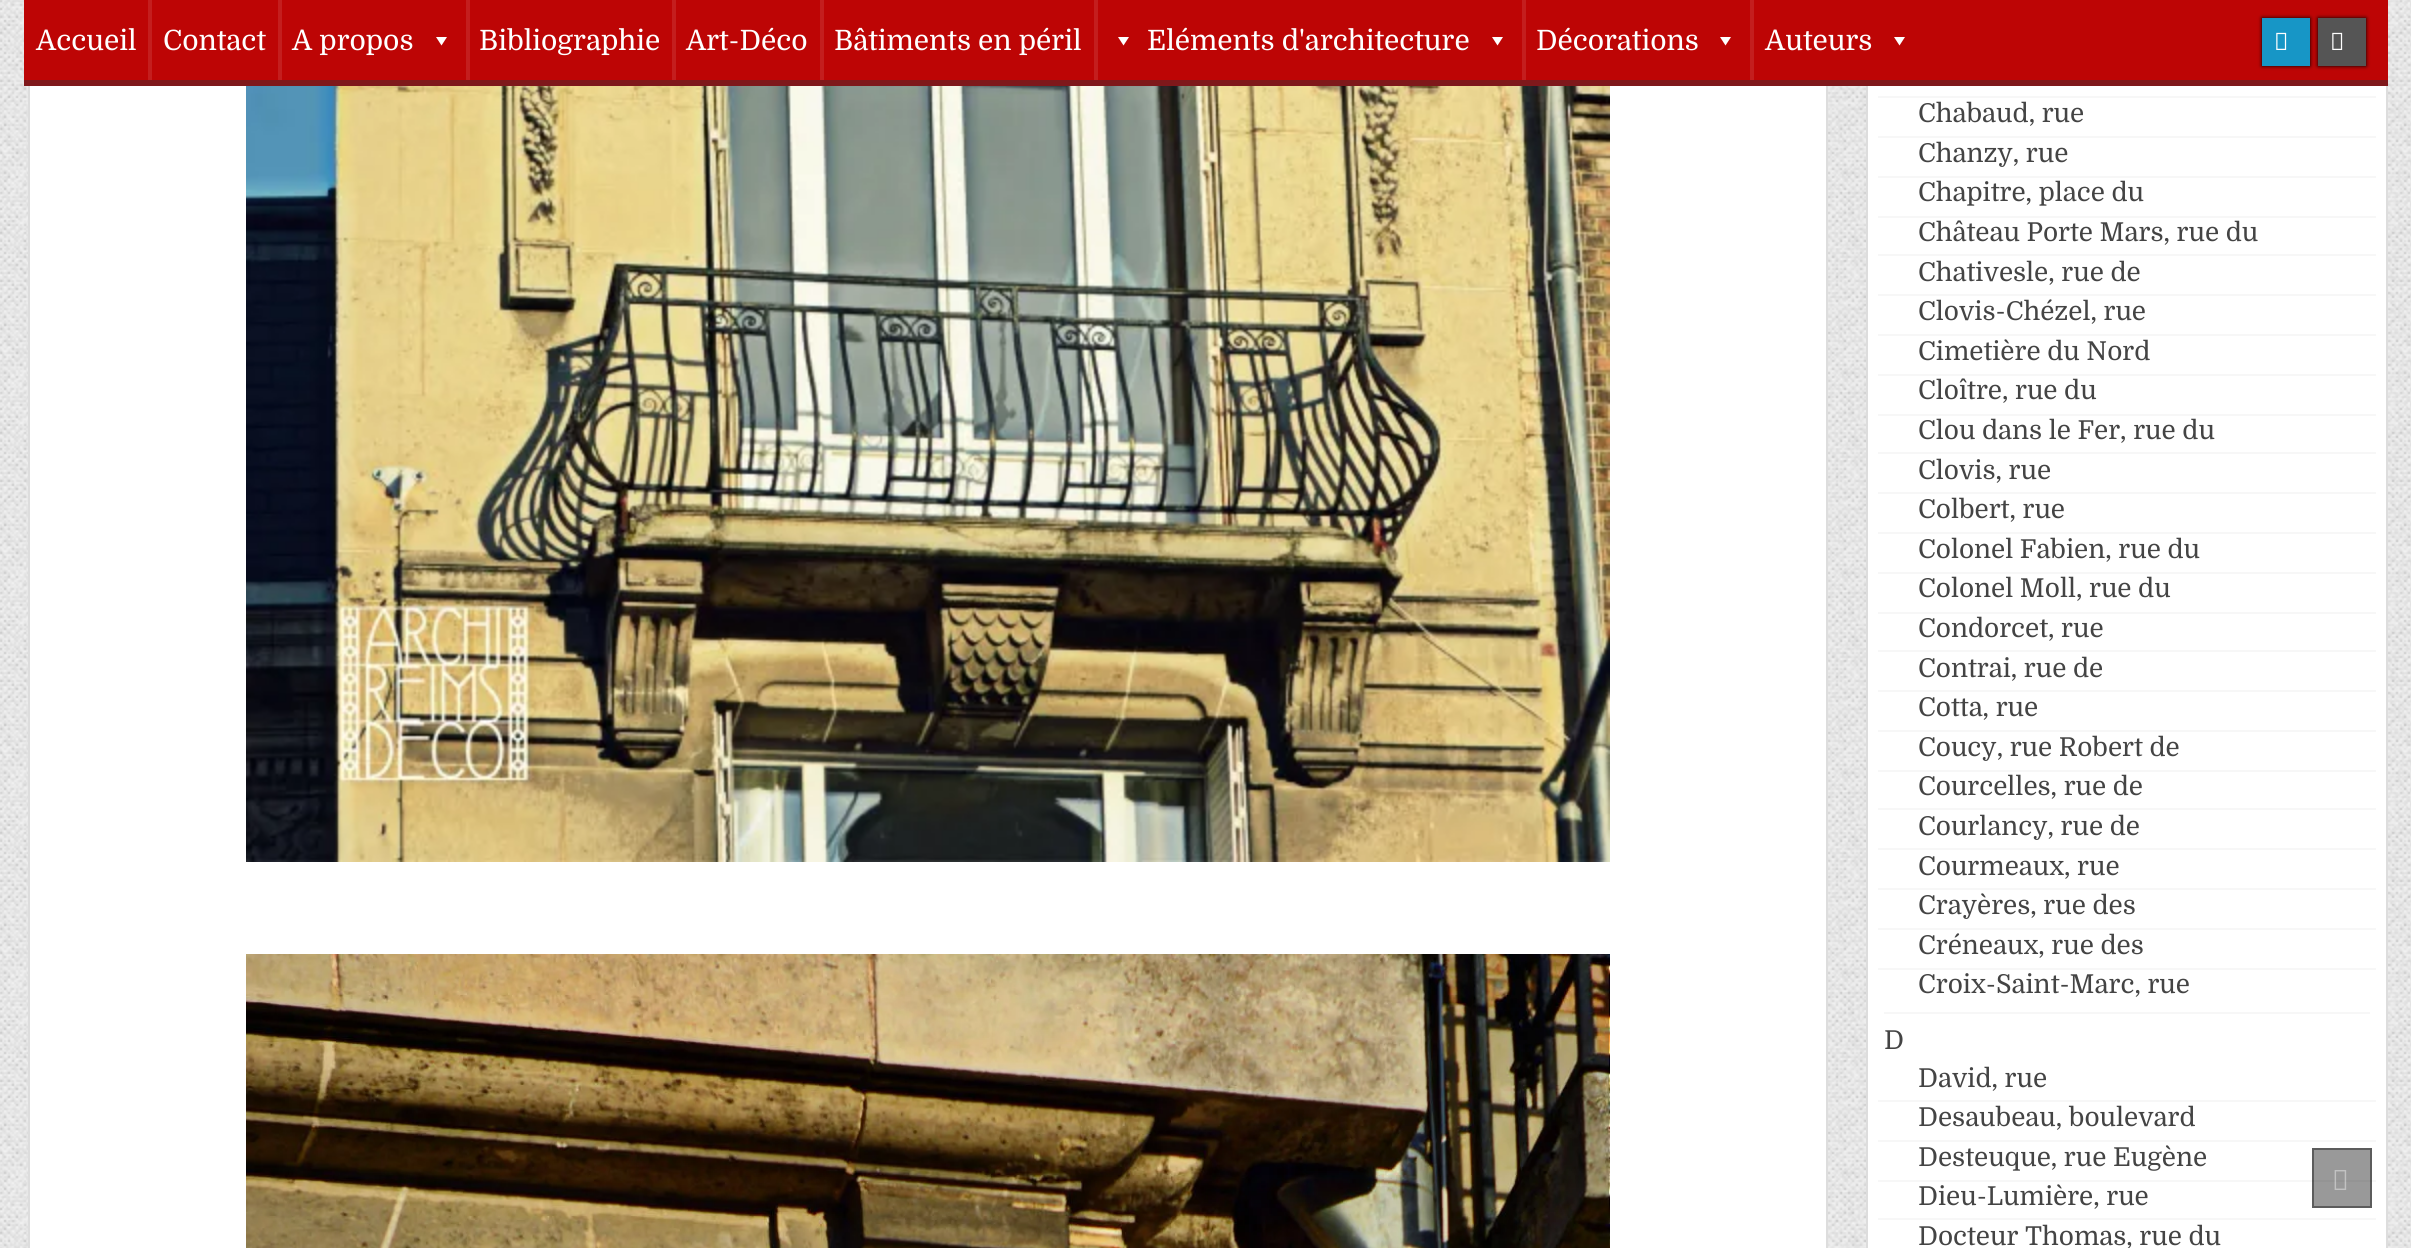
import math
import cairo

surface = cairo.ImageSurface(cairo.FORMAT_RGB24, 2411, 1248)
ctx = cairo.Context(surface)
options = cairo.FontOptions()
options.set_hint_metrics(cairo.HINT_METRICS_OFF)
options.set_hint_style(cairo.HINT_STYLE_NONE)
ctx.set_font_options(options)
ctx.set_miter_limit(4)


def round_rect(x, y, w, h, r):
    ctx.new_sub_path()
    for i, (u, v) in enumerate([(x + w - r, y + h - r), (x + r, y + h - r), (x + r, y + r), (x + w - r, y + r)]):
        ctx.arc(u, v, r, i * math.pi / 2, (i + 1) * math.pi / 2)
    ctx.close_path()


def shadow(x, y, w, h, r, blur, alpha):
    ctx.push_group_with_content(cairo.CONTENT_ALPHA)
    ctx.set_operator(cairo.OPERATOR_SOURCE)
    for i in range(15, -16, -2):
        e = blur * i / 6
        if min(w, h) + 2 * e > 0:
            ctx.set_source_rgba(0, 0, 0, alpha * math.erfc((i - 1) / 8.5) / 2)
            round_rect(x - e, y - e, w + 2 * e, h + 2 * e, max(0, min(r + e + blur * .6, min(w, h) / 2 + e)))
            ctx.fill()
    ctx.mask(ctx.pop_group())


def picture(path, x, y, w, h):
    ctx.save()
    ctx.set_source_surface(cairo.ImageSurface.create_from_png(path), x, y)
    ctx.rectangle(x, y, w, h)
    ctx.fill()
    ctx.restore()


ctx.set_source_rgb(1, 1, 1)
ctx.paint()
picture("img1.png", 0, 0, 2411, 1248)
ctx.set_source_rgb(1, 1, 1)
ctx.rectangle(30, 86, 1796, 1162)
ctx.fill()
ctx.rectangle(29, -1, 1798, 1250)
ctx.set_source_rgb(0.867, 0.867, 0.867)
ctx.stroke()
ctx.set_source_rgb(1, 1, 1)
ctx.rectangle(1868, 86, 518, 1162)
ctx.fill()
ctx.rectangle(1867, -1, 520, 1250)
ctx.set_source_rgb(0.867, 0.867, 0.867)
ctx.stroke()
ctx.set_source_rgb(0.498, 0.094, 0.106)
ctx.rectangle(24, 80, 2364, 6)
ctx.fill()
ctx.set_source_rgb(0.741, 0.02, 0.02)
ctx.rectangle(24, 0, 2364, 80)
ctx.fill()
ctx.select_font_face("Domine")
ctx.set_font_size(28)
ctx.set_source_rgb(1, 1, 1)
ctx.move_to(36, 50)
ctx.show_text("Accueil")
ctx.set_source_rgb(0.769, 0.118, 0.118)
ctx.rectangle(148, 0, 4, 80)
ctx.fill()
ctx.set_source_rgb(1, 1, 1)
ctx.move_to(163, 50)
ctx.show_text("Contact")
ctx.set_source_rgb(0.769, 0.118, 0.118)
ctx.rectangle(278, 0, 4, 80)
ctx.fill()
ctx.set_source_rgb(1, 1, 1)
ctx.move_to(292, 50)
ctx.show_text("A propos")
ctx.new_path()
ctx.move_to(447, 37)
ctx.line_to(441.5, 45.5)
ctx.line_to(436, 37)
ctx.close_path()
ctx.fill()
ctx.set_source_rgb(0.769, 0.118, 0.118)
ctx.rectangle(466, 0, 4, 80)
ctx.fill()
ctx.set_source_rgb(1, 1, 1)
ctx.move_to(479, 50)
ctx.show_text("Bibliographie")
ctx.set_source_rgb(0.769, 0.118, 0.118)
ctx.rectangle(672, 0, 4, 80)
ctx.fill()
ctx.set_source_rgb(1, 1, 1)
ctx.move_to(686, 50)
ctx.show_text("Art-Déco")
ctx.set_source_rgb(0.769, 0.118, 0.118)
ctx.rectangle(820, 0, 4, 80)
ctx.fill()
ctx.set_source_rgb(1, 1, 1)
ctx.move_to(834, 50)
ctx.show_text("Bâtiments en péril")
ctx.set_source_rgb(0.769, 0.118, 0.118)
ctx.rectangle(1094, 0, 4, 80)
ctx.fill()
ctx.set_source_rgb(1, 1, 1)
ctx.new_path()
ctx.move_to(1129, 37)
ctx.line_to(1123.5, 45.5)
ctx.line_to(1118, 37)
ctx.close_path()
ctx.fill()
ctx.move_to(1147, 50)
ctx.show_text("Eléments d'architecture")
ctx.new_path()
ctx.move_to(1503, 37)
ctx.line_to(1497.5, 45.5)
ctx.line_to(1492, 37)
ctx.close_path()
ctx.fill()
ctx.set_source_rgb(0.769, 0.118, 0.118)
ctx.rectangle(1522, 0, 4, 80)
ctx.fill()
ctx.set_source_rgb(1, 1, 1)
ctx.move_to(1536, 50)
ctx.show_text("Décorations")
ctx.new_path()
ctx.move_to(1731, 37)
ctx.line_to(1725.5, 45.5)
ctx.line_to(1720, 37)
ctx.close_path()
ctx.fill()
ctx.set_source_rgb(0.769, 0.118, 0.118)
ctx.rectangle(1750, 0, 4, 80)
ctx.fill()
ctx.set_source_rgb(1, 1, 1)
ctx.move_to(1765, 50)
ctx.show_text("Auteurs")
ctx.new_path()
ctx.move_to(1905, 37)
ctx.line_to(1899.5, 45.5)
ctx.line_to(1894, 37)
ctx.close_path()
ctx.fill()
ctx.set_source_rgb(0, 0, 0)
shadow(2262, 18, 48, 48, 0, 2, 1)
ctx.set_source_rgb(0.09, 0.588, 0.776)
ctx.rectangle(2262, 18, 48, 48)
ctx.fill()
picture("img2.png", 2276, 32, 11, 18)
ctx.set_source_rgb(0, 0, 0)
shadow(2318, 18, 48, 48, 0, 2, 1)
ctx.set_source_rgb(0.333, 0.333, 0.333)
ctx.rectangle(2318, 18, 48, 48)
ctx.fill()
picture("img3.png", 2332, 32, 11, 18)
picture("img4.png", 246, 86, 1364, 776)
picture("img5.png", 246, 954, 1364, 294)
ctx.set_source_rgb(0.965, 0.965, 0.965)
ctx.rectangle(1884, 1012, 486, 2)
ctx.fill()
ctx.rectangle(1878, 96, 498, 2)
ctx.fill()
ctx.rectangle(1878, 136, 498, 2)
ctx.fill()
ctx.set_font_size(26)
ctx.set_source_rgb(0.267, 0.267, 0.267)
ctx.move_to(1918, 122)
ctx.show_text("Chabaud, rue")
ctx.set_source_rgb(0.965, 0.965, 0.965)
ctx.rectangle(1878, 176, 498, 2)
ctx.fill()
ctx.set_source_rgb(0.267, 0.267, 0.267)
ctx.move_to(1918, 162)
ctx.show_text("Chanzy, rue")
ctx.set_source_rgb(0.965, 0.965, 0.965)
ctx.rectangle(1878, 216, 498, 2)
ctx.fill()
ctx.set_source_rgb(0.267, 0.267, 0.267)
ctx.move_to(1918, 201)
ctx.show_text("Chapitre, place du")
ctx.set_source_rgb(0.965, 0.965, 0.965)
ctx.rectangle(1878, 254, 498, 2)
ctx.fill()
ctx.set_source_rgb(0.267, 0.267, 0.267)
ctx.move_to(1918, 241)
ctx.show_text("Château Porte Mars, rue du")
ctx.set_source_rgb(0.965, 0.965, 0.965)
ctx.rectangle(1878, 294, 498, 2)
ctx.fill()
ctx.set_source_rgb(0.267, 0.267, 0.267)
ctx.move_to(1918, 281)
ctx.show_text("Chativesle, rue de")
ctx.set_source_rgb(0.965, 0.965, 0.965)
ctx.rectangle(1878, 334, 498, 2)
ctx.fill()
ctx.set_source_rgb(0.267, 0.267, 0.267)
ctx.move_to(1918, 320)
ctx.show_text("Clovis-Chézel, rue")
ctx.set_source_rgb(0.965, 0.965, 0.965)
ctx.rectangle(1878, 374, 498, 2)
ctx.fill()
ctx.set_source_rgb(0.267, 0.267, 0.267)
ctx.move_to(1918, 360)
ctx.show_text("Cimetière du Nord")
ctx.set_source_rgb(0.965, 0.965, 0.965)
ctx.rectangle(1878, 414, 498, 2)
ctx.fill()
ctx.set_source_rgb(0.267, 0.267, 0.267)
ctx.move_to(1918, 399)
ctx.show_text("Cloître, rue du")
ctx.set_source_rgb(0.965, 0.965, 0.965)
ctx.rectangle(1878, 452, 498, 2)
ctx.fill()
ctx.set_source_rgb(0.267, 0.267, 0.267)
ctx.move_to(1918, 439)
ctx.show_text("Clou dans le Fer, rue du")
ctx.set_source_rgb(0.965, 0.965, 0.965)
ctx.rectangle(1878, 492, 498, 2)
ctx.fill()
ctx.set_source_rgb(0.267, 0.267, 0.267)
ctx.move_to(1918, 479)
ctx.show_text("Clovis, rue")
ctx.set_source_rgb(0.965, 0.965, 0.965)
ctx.rectangle(1878, 532, 498, 2)
ctx.fill()
ctx.set_source_rgb(0.267, 0.267, 0.267)
ctx.move_to(1918, 518)
ctx.show_text("Colbert, rue")
ctx.set_source_rgb(0.965, 0.965, 0.965)
ctx.rectangle(1878, 572, 498, 2)
ctx.fill()
ctx.set_source_rgb(0.267, 0.267, 0.267)
ctx.move_to(1918, 558)
ctx.show_text("Colonel Fabien, rue du")
ctx.set_source_rgb(0.965, 0.965, 0.965)
ctx.rectangle(1878, 612, 498, 2)
ctx.fill()
ctx.set_source_rgb(0.267, 0.267, 0.267)
ctx.move_to(1918, 597)
ctx.show_text("Colonel Moll, rue du")
ctx.set_source_rgb(0.965, 0.965, 0.965)
ctx.rectangle(1878, 650, 498, 2)
ctx.fill()
ctx.set_source_rgb(0.267, 0.267, 0.267)
ctx.move_to(1918, 637)
ctx.show_text("Condorcet, rue")
ctx.set_source_rgb(0.965, 0.965, 0.965)
ctx.rectangle(1878, 690, 498, 2)
ctx.fill()
ctx.set_source_rgb(0.267, 0.267, 0.267)
ctx.move_to(1918, 677)
ctx.show_text("Contrai, rue de")
ctx.set_source_rgb(0.965, 0.965, 0.965)
ctx.rectangle(1878, 730, 498, 2)
ctx.fill()
ctx.set_source_rgb(0.267, 0.267, 0.267)
ctx.move_to(1918, 716)
ctx.show_text("Cotta, rue")
ctx.set_source_rgb(0.965, 0.965, 0.965)
ctx.rectangle(1878, 770, 498, 2)
ctx.fill()
ctx.set_source_rgb(0.267, 0.267, 0.267)
ctx.move_to(1918, 756)
ctx.show_text("Coucy, rue Robert de")
ctx.set_source_rgb(0.965, 0.965, 0.965)
ctx.rectangle(1878, 808, 498, 2)
ctx.fill()
ctx.set_source_rgb(0.267, 0.267, 0.267)
ctx.move_to(1918, 795)
ctx.show_text("Courcelles, rue de")
ctx.set_source_rgb(0.965, 0.965, 0.965)
ctx.rectangle(1878, 848, 498, 2)
ctx.fill()
ctx.set_source_rgb(0.267, 0.267, 0.267)
ctx.move_to(1918, 835)
ctx.show_text("Courlancy, rue de")
ctx.set_source_rgb(0.965, 0.965, 0.965)
ctx.rectangle(1878, 888, 498, 2)
ctx.fill()
ctx.set_source_rgb(0.267, 0.267, 0.267)
ctx.move_to(1918, 875)
ctx.show_text("Courmeaux, rue")
ctx.set_source_rgb(0.965, 0.965, 0.965)
ctx.rectangle(1878, 928, 498, 2)
ctx.fill()
ctx.set_source_rgb(0.267, 0.267, 0.267)
ctx.move_to(1918, 914)
ctx.show_text("Crayères, rue des")
ctx.set_source_rgb(0.965, 0.965, 0.965)
ctx.rectangle(1878, 968, 498, 2)
ctx.fill()
ctx.set_source_rgb(0.267, 0.267, 0.267)
ctx.move_to(1918, 954)
ctx.show_text("Créneaux, rue des")
ctx.move_to(1918, 993)
ctx.show_text("Croix-Saint-Marc, rue")
ctx.move_to(1884, 1049)
ctx.show_text("D")
ctx.set_source_rgb(0.965, 0.965, 0.965)
ctx.rectangle(1878, 1100, 498, 2)
ctx.fill()
ctx.set_source_rgb(0.267, 0.267, 0.267)
ctx.move_to(1918, 1087)
ctx.show_text("David, rue")
ctx.set_source_rgb(0.965, 0.965, 0.965)
ctx.rectangle(1878, 1140, 498, 2)
ctx.fill()
ctx.set_source_rgb(0.267, 0.267, 0.267)
ctx.move_to(1918, 1126)
ctx.show_text("Desaubeau, boulevard")
ctx.set_source_rgb(0.965, 0.965, 0.965)
ctx.rectangle(1878, 1180, 498, 2)
ctx.fill()
ctx.set_source_rgb(0.267, 0.267, 0.267)
ctx.move_to(1918, 1166)
ctx.show_text("Desteuque, rue Eugène")
ctx.set_source_rgb(0.965, 0.965, 0.965)
ctx.rectangle(1878, 1218, 498, 2)
ctx.fill()
ctx.set_source_rgb(0.267, 0.267, 0.267)
ctx.move_to(1918, 1205)
ctx.show_text("Dieu-Lumière, rue")
ctx.move_to(1918, 1245)
ctx.show_text("Docteur Thomas, rue du")
ctx.set_source_rgba(0, 0, 0, 0.4)
ctx.rectangle(2312, 1148, 60, 60)
ctx.fill()
ctx.rectangle(2313, 1149, 58, 58)
ctx.stroke()
picture("img6.png", 2334, 1170, 13, 20)
surface.write_to_png("page.png")
